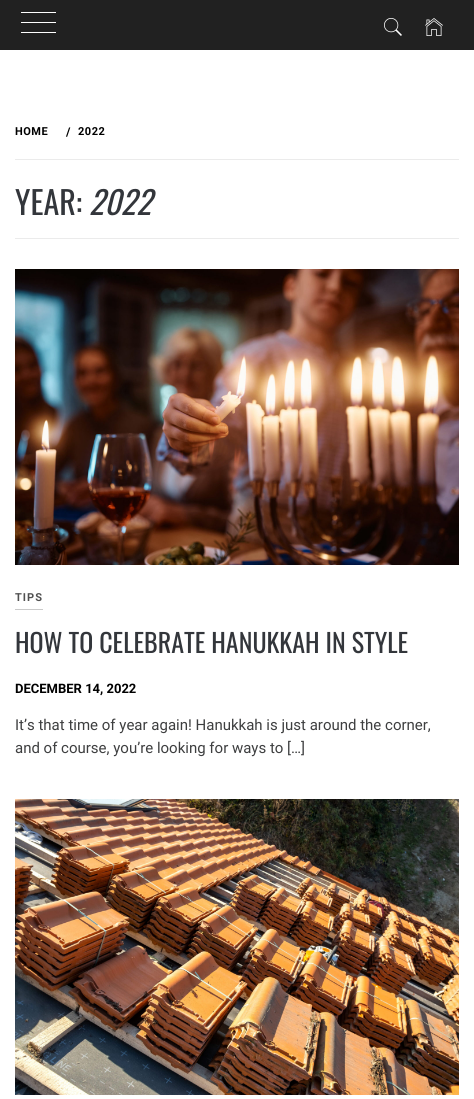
import math
import cairo

surface = cairo.ImageSurface(cairo.FORMAT_RGB24, 474, 1099)
ctx = cairo.Context(surface)
options = cairo.FontOptions()
options.set_hint_metrics(cairo.HINT_METRICS_OFF)
options.set_hint_style(cairo.HINT_STYLE_NONE)
ctx.set_font_options(options)
ctx.set_miter_limit(4)


def spaced_text(x, y, s, letter, word):
    ctx.move_to(x, y)
    for ch in s:
        ctx.show_text(ch)
        ctx.rel_move_to(letter + word * (ch == ' '), 0)


def picture(path, x, y, w, h):
    ctx.save()
    ctx.set_source_surface(cairo.ImageSurface.create_from_png(path), x, y)
    ctx.rectangle(x, y, w, h)
    ctx.fill()
    ctx.restore()


ctx.set_source_rgb(1, 1, 1)
ctx.paint()
ctx.set_source_rgb(0.129, 0.129, 0.129)
ctx.rectangle(0, 0, 474, 50)
ctx.fill()
ctx.set_source_rgb(1, 1, 1)
ctx.rectangle(21, 12, 35, 1)
ctx.fill()
ctx.rectangle(21, 22, 35, 1)
ctx.fill()
ctx.rectangle(21, 32, 35, 1)
ctx.fill()
picture("img1.png", 384, 18, 18, 18)
picture("img2.png", 425, 18, 18, 18)
ctx.set_source_rgb(0.918, 0.918, 0.918)
ctx.rectangle(15, 238, 444, 1)
ctx.fill()
ctx.rectangle(15, 159, 444, 1)
ctx.fill()
ctx.select_font_face("Roboto", cairo.FONT_SLANT_NORMAL, cairo.FONT_WEIGHT_BOLD)
ctx.set_font_size(11)
ctx.set_source_rgb(0, 0, 0)
spaced_text(15, 135, "HOME", 0.5, 0)
ctx.set_font_size(12)
spaced_text(66, 136, "/", 0.5, 0)
ctx.set_font_size(11)
spaced_text(78, 135, "2022", 0.5, 0)
ctx.select_font_face("Oswald")
ctx.set_font_size(32)
ctx.set_source_rgb(0.2, 0.212, 0.231)
ctx.move_to(15, 215)
ctx.show_text("YEAR:")
ctx.select_font_face("Oswald", cairo.FONT_SLANT_ITALIC)
ctx.move_to(89, 215)
ctx.show_text("2022")
picture("img3.png", 15, 269, 444, 296)
ctx.set_source_rgb(0.792, 0.792, 0.792)
ctx.rectangle(15, 609, 28, 1)
ctx.fill()
ctx.select_font_face("Roboto", cairo.FONT_SLANT_NORMAL, cairo.FONT_WEIGHT_BOLD)
ctx.set_font_size(11)
ctx.set_source_rgb(0.314, 0.314, 0.314)
spaced_text(15, 601, "TIPS", 1, 0)
ctx.select_font_face("Oswald")
ctx.set_font_size(26)
ctx.set_source_rgb(0.2, 0.212, 0.231)
ctx.move_to(15, 653)
ctx.show_text("HOW TO CELEBRATE HANUKKAH IN STYLE")
ctx.select_font_face("Roboto", cairo.FONT_SLANT_NORMAL, cairo.FONT_WEIGHT_BOLD)
ctx.set_font_size(13)
ctx.set_source_rgb(0, 0, 0)
ctx.move_to(15, 693)
ctx.show_text("DECEMBER 14, 2022")
ctx.select_font_face("Roboto")
ctx.set_font_size(15)
ctx.set_source_rgb(0.243, 0.247, 0.251)
ctx.move_to(15, 730)
ctx.show_text("It’s that time of year again! Hanukkah is just around the corner,")
ctx.move_to(15, 753)
ctx.show_text("and of course, you’re looking for ways to […]")
picture("img4.png", 15, 799, 444, 296)
surface.write_to_png("page.png")
